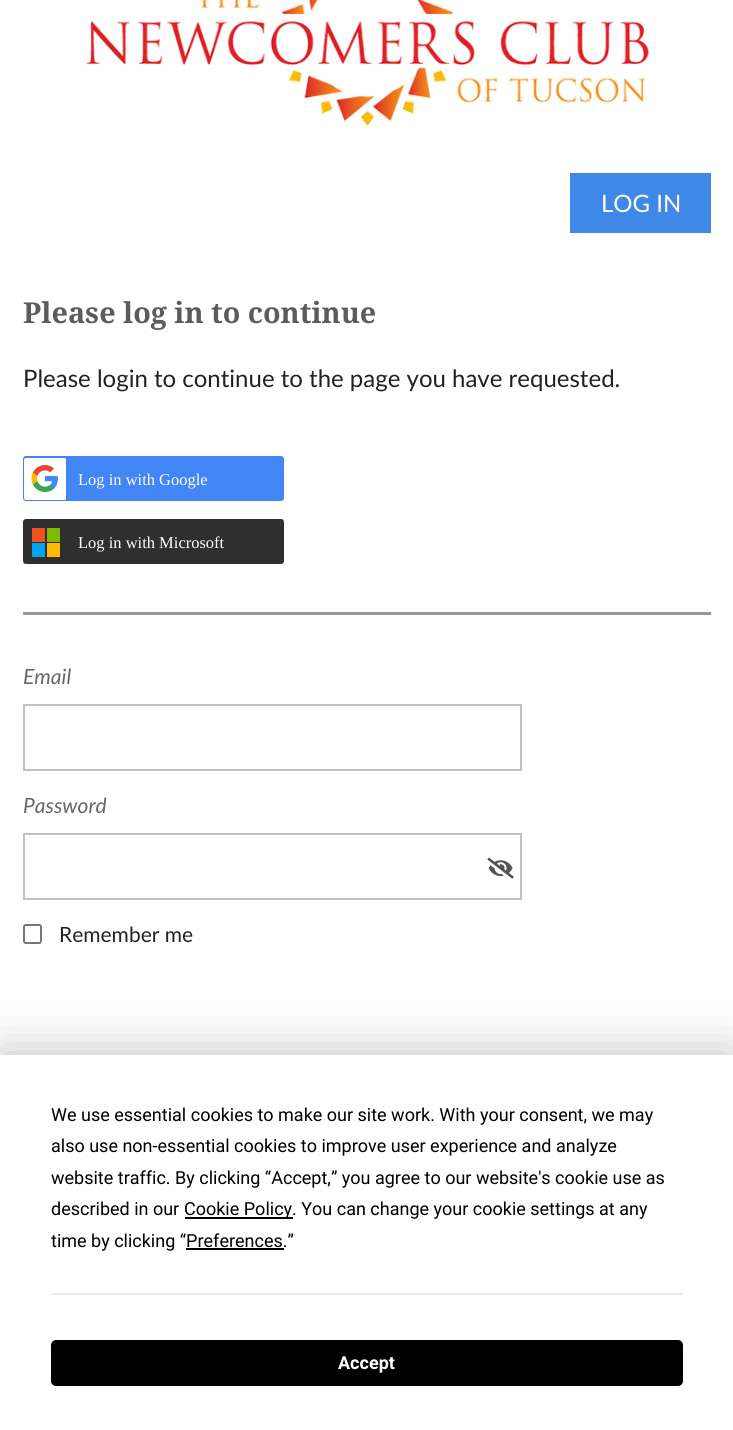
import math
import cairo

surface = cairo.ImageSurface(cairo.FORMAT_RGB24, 733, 1430)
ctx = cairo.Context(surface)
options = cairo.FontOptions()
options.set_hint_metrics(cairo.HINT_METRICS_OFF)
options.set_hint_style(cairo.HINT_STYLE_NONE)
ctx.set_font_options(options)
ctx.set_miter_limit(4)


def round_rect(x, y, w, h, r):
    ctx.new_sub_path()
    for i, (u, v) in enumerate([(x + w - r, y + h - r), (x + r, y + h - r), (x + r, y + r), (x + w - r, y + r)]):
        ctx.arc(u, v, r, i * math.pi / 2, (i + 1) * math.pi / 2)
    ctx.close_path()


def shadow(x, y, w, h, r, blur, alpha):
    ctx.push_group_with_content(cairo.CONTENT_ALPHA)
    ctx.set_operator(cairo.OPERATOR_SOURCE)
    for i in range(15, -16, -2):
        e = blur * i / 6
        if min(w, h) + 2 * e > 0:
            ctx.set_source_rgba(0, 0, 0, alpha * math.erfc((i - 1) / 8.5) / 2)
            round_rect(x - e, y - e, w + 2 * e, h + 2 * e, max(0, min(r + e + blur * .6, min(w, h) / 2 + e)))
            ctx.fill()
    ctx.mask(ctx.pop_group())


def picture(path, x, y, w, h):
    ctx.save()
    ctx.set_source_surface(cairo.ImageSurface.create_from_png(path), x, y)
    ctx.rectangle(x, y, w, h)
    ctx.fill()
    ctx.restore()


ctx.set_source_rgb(1, 1, 1)
ctx.paint()
picture("img1.png", 86, 0, 563, 127)
ctx.set_source_rgb(0.247, 0.533, 0.91)
ctx.rectangle(570, 173, 141, 60)
ctx.fill()
ctx.select_font_face("Lato")
ctx.set_font_size(24)
ctx.set_source_rgb(1, 1, 1)
ctx.move_to(601, 212)
ctx.show_text("LOG IN")
ctx.select_font_face("Droid Serif", cairo.FONT_SLANT_NORMAL, cairo.FONT_WEIGHT_BOLD)
ctx.set_font_size(28.75)
ctx.set_source_rgb(0.361, 0.361, 0.361)
ctx.move_to(23, 323)
ctx.show_text("Please log in to continue")
ctx.select_font_face("Lato")
ctx.set_font_size(24)
ctx.set_source_rgb(0.133, 0.133, 0.133)
ctx.move_to(23, 387)
ctx.show_text("Please login to continue to the page you have requested.")
ctx.set_source_rgb(0.259, 0.522, 0.957)
round_rect(24, 457, 259, 43, 2)
ctx.fill_preserve()
ctx.stroke()
picture("img2.png", 24, 458, 42, 42)
ctx.select_font_face("Liberation Serif")
ctx.set_font_size(16.5)
ctx.set_source_rgb(1, 1, 1)
ctx.move_to(78, 485)
ctx.show_text("Log in with Google")
ctx.set_source_rgb(0.184, 0.184, 0.184)
round_rect(24, 520, 259, 43, 2)
ctx.fill_preserve()
ctx.stroke()
ctx.set_source_rgb(0.949, 0.314, 0.133)
ctx.rectangle(32, 528, 13, 14)
ctx.fill()
ctx.set_source_rgb(0, 0.643, 0.937)
ctx.rectangle(32, 543, 13, 14)
ctx.fill()
ctx.set_source_rgb(0.498, 0.729, 0)
ctx.rectangle(47, 528, 13, 14)
ctx.fill()
ctx.set_source_rgb(1, 0.725, 0)
ctx.rectangle(47, 543, 13, 14)
ctx.fill()
ctx.set_source_rgb(1, 1, 1)
ctx.move_to(78, 548)
ctx.show_text("Log in with Microsoft")
ctx.set_source_rgb(0.592, 0.592, 0.592)
ctx.rectangle(23, 612, 688, 3)
ctx.fill()
ctx.select_font_face("Lato", cairo.FONT_SLANT_ITALIC)
ctx.set_font_size(21)
ctx.set_source_rgb(0.404, 0.404, 0.404)
ctx.move_to(23, 684)
ctx.show_text("Email")
ctx.rectangle(24, 705, 497, 65)
ctx.set_source_rgb(0.757, 0.757, 0.757)
ctx.stroke()
ctx.set_source_rgb(0.404, 0.404, 0.404)
ctx.move_to(23, 813)
ctx.show_text("Password")
ctx.rectangle(24, 834, 497, 65)
ctx.set_source_rgb(0.757, 0.757, 0.757)
ctx.stroke()
picture("img3.png", 487, 857, 27, 22)
round_rect(24, 925, 17, 18, 2)
ctx.set_source_rgb(0.463, 0.463, 0.463)
ctx.stroke()
ctx.select_font_face("Lato")
ctx.set_source_rgb(0.133, 0.133, 0.133)
ctx.move_to(59, 942)
ctx.show_text("Remember me")
ctx.set_source_rgb(0, 0, 0)
shadow(0, 1055, 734, 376, 0, 26, 0.25)
ctx.set_source_rgb(1, 1, 1)
ctx.rectangle(0, 1055, 733, 375)
ctx.fill()
ctx.select_font_face("Roboto")
ctx.set_font_size(18)
ctx.set_source_rgb(0, 0, 0)
ctx.move_to(51, 1121)
ctx.show_text("We use essential cookies to make our site work. With your consent, we may")
ctx.move_to(51, 1152)
ctx.show_text("also use non-essential cookies to improve user experience and analyze")
ctx.move_to(51, 1184)
ctx.show_text("website traffic. By clicking “Accept,” you agree to our website's cookie use as")
ctx.move_to(51, 1215)
ctx.show_text("described in our")
ctx.rectangle(185, 1217, 108, 2)
ctx.fill()
ctx.move_to(184, 1215)
ctx.show_text("Cookie Policy. You can change your cookie settings at any")
ctx.move_to(51, 1247)
ctx.show_text("time by clicking “Preferences.”")
ctx.rectangle(186, 1248, 98, 2)
ctx.fill()
ctx.set_source_rgb(0.929, 0.929, 0.937)
ctx.rectangle(51, 1293, 632, 2)
ctx.fill()
ctx.set_source_rgb(0, 0, 0)
round_rect(52, 1341, 630, 44, 4)
ctx.fill_preserve()
ctx.stroke()
ctx.select_font_face("Roboto", cairo.FONT_SLANT_NORMAL, cairo.FONT_WEIGHT_BOLD)
ctx.set_source_rgb(1, 1, 1)
ctx.move_to(338, 1369)
ctx.show_text("Accept")
surface.write_to_png("page.png")
